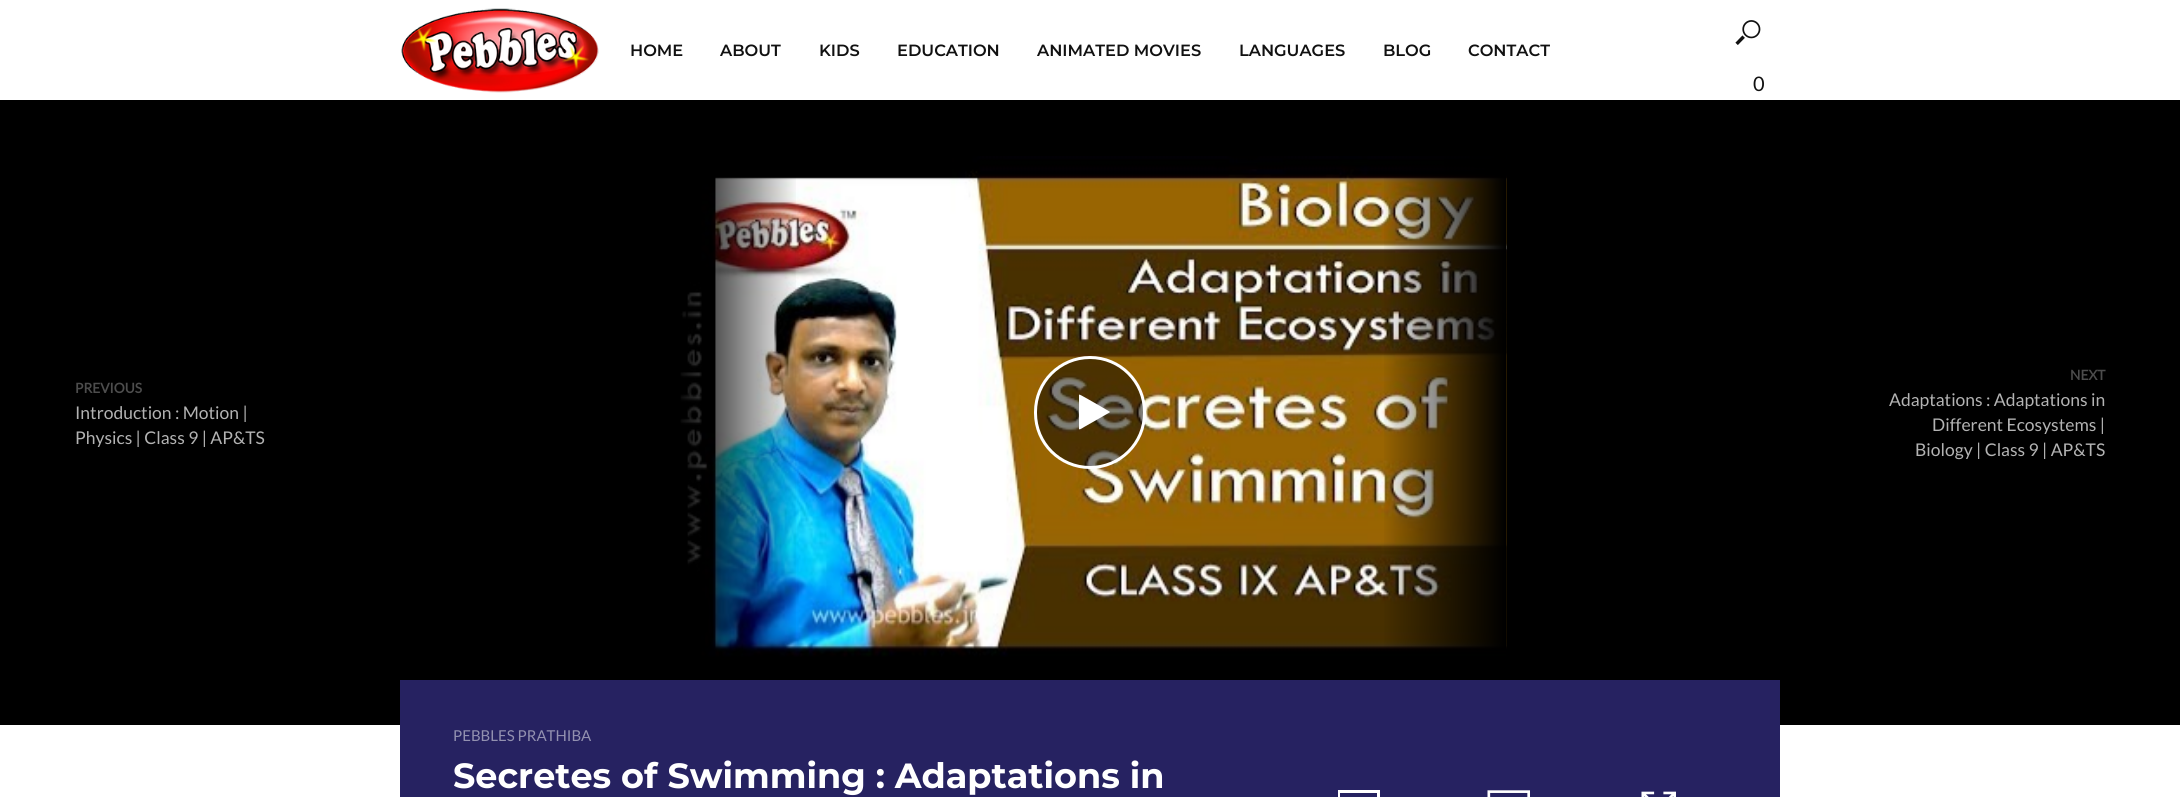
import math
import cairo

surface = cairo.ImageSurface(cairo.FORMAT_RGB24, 2180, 797)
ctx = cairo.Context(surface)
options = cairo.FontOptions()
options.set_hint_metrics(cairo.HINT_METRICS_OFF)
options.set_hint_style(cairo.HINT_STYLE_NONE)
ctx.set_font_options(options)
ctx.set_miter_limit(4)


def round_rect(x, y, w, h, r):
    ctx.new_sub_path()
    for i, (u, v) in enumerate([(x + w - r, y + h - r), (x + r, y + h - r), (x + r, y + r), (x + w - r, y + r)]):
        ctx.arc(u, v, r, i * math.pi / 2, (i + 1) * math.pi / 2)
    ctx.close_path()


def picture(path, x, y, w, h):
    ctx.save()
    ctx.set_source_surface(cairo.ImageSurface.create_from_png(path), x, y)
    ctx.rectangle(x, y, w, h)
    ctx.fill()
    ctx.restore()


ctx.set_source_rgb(1, 1, 1)
ctx.paint()
picture("img1.png", 401, 8, 198, 85)
ctx.select_font_face("Montserrat SemiBold")
ctx.set_font_size(16.25)
ctx.set_source_rgb(0.067, 0.067, 0.067)
ctx.move_to(630, 56)
ctx.show_text("HOME")
ctx.move_to(720, 56)
ctx.show_text("ABOUT")
ctx.move_to(819, 56)
ctx.show_text("KIDS")
ctx.move_to(897, 56)
ctx.show_text("EDUCATION")
ctx.move_to(1037, 56)
ctx.show_text("ANIMATED MOVIES")
ctx.move_to(1239, 56)
ctx.show_text("LANGUAGES")
ctx.move_to(1383, 56)
ctx.show_text("BLOG")
ctx.move_to(1468, 56)
ctx.show_text("CONTACT")
picture("img2.png", 1735, 20, 26, 25)
ctx.select_font_face("Lato")
ctx.set_font_size(20)
ctx.move_to(1753, 91)
ctx.show_text("0")
ctx.set_source_rgb(0, 0, 0)
ctx.rectangle(0, 100, 2180, 625)
ctx.fill()
picture("img3.png", 675, 156, 832, 501)
gradient = cairo.LinearGradient(674, 413, 799, 413)
gradient.add_color_stop_rgba(0, 0, 0, 0, 1)
gradient.add_color_stop_rgba(1, 0, 0, 0, 0)
ctx.set_source(gradient)
ctx.rectangle(675, 177, 121, 480)
ctx.fill()
ctx.set_source_rgba(0, 0, 0, 0.5)
round_rect(1035.5, 357.5, 109, 110, 54.5)
ctx.fill_preserve()
ctx.set_source_rgb(1, 1, 1)
ctx.set_line_width(3)
ctx.stroke()
ctx.new_path()
ctx.move_to(1109.5, 412.5)
ctx.line_to(1085, 426.5)
ctx.curve_to(1084.5, 426.5, 1079.5, 430.5, 1079, 429)
ctx.line_to(1079, 395)
ctx.line_to(1079.5, 394.5)
ctx.curve_to(1080, 394.5, 1097.5, 404.5, 1100, 406)
ctx.line_to(1109.5, 411.5)
ctx.line_to(1110, 412)
ctx.close_path()
ctx.fill()
gradient = cairo.LinearGradient(1381, 413, 1506, 413)
gradient.add_color_stop_rgba(0, 0, 0, 0, 0)
gradient.add_color_stop_rgba(1, 0, 0, 0, 1)
ctx.set_source(gradient)
ctx.rectangle(1384, 156, 122, 495)
ctx.fill()
ctx.select_font_face("Lato", cairo.FONT_SLANT_NORMAL, cairo.FONT_WEIGHT_BOLD)
ctx.set_font_size(13.75)
ctx.set_source_rgb(0.302, 0.302, 0.302)
ctx.move_to(75, 393)
ctx.show_text("PREVIOUS")
ctx.select_font_face("Lato")
ctx.set_font_size(17.5)
ctx.set_source_rgb(0.702, 0.702, 0.702)
ctx.move_to(75, 419)
ctx.show_text("Introduction : Motion |")
ctx.move_to(75, 444)
ctx.show_text("Physics | Class 9 | AP&TS")
ctx.select_font_face("Lato", cairo.FONT_SLANT_NORMAL, cairo.FONT_WEIGHT_BOLD)
ctx.set_font_size(13.75)
ctx.set_source_rgb(0.302, 0.302, 0.302)
ctx.move_to(2070, 380)
ctx.show_text("NEXT")
ctx.select_font_face("Lato")
ctx.set_font_size(17.5)
ctx.set_source_rgb(0.702, 0.702, 0.702)
ctx.move_to(1889, 406)
ctx.show_text("Adaptations : Adaptations in")
ctx.move_to(1932, 431)
ctx.show_text("Different Ecosystems |")
ctx.move_to(1915, 456)
ctx.show_text("Biology | Class 9 | AP&TS")
ctx.set_source_rgb(0.149, 0.133, 0.38)
ctx.rectangle(400, 680, 1380, 117)
ctx.fill()
ctx.set_font_size(15)
ctx.set_source_rgb(0.576, 0.569, 0.69)
ctx.move_to(453, 741)
ctx.show_text("PEBBLES PRATHIBA")
ctx.select_font_face("Montserrat", cairo.FONT_SLANT_NORMAL, cairo.FONT_WEIGHT_BOLD)
ctx.set_font_size(35)
ctx.set_source_rgb(1, 1, 1)
ctx.move_to(453, 788)
ctx.show_text("Secretes of Swimming : Adaptations in")
ctx.new_path()
ctx.move_to(1338, 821)
ctx.line_to(1347, 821)
ctx.line_to(1347, 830)
ctx.line_to(1358, 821)
ctx.line_to(1380, 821)
ctx.line_to(1380, 790)
ctx.line_to(1338, 790)
ctx.close_path()
ctx.move_to(1340, 793)
ctx.line_to(1377, 793)
ctx.line_to(1377, 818)
ctx.line_to(1357, 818)
ctx.line_to(1350, 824)
ctx.line_to(1350, 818)
ctx.line_to(1340, 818)
ctx.close_path()
ctx.fill()
picture("img4.png", 1487, 790, 43, 7)
picture("img5.png", 1641, 791, 35, 6)
surface.write_to_png("page.png")
